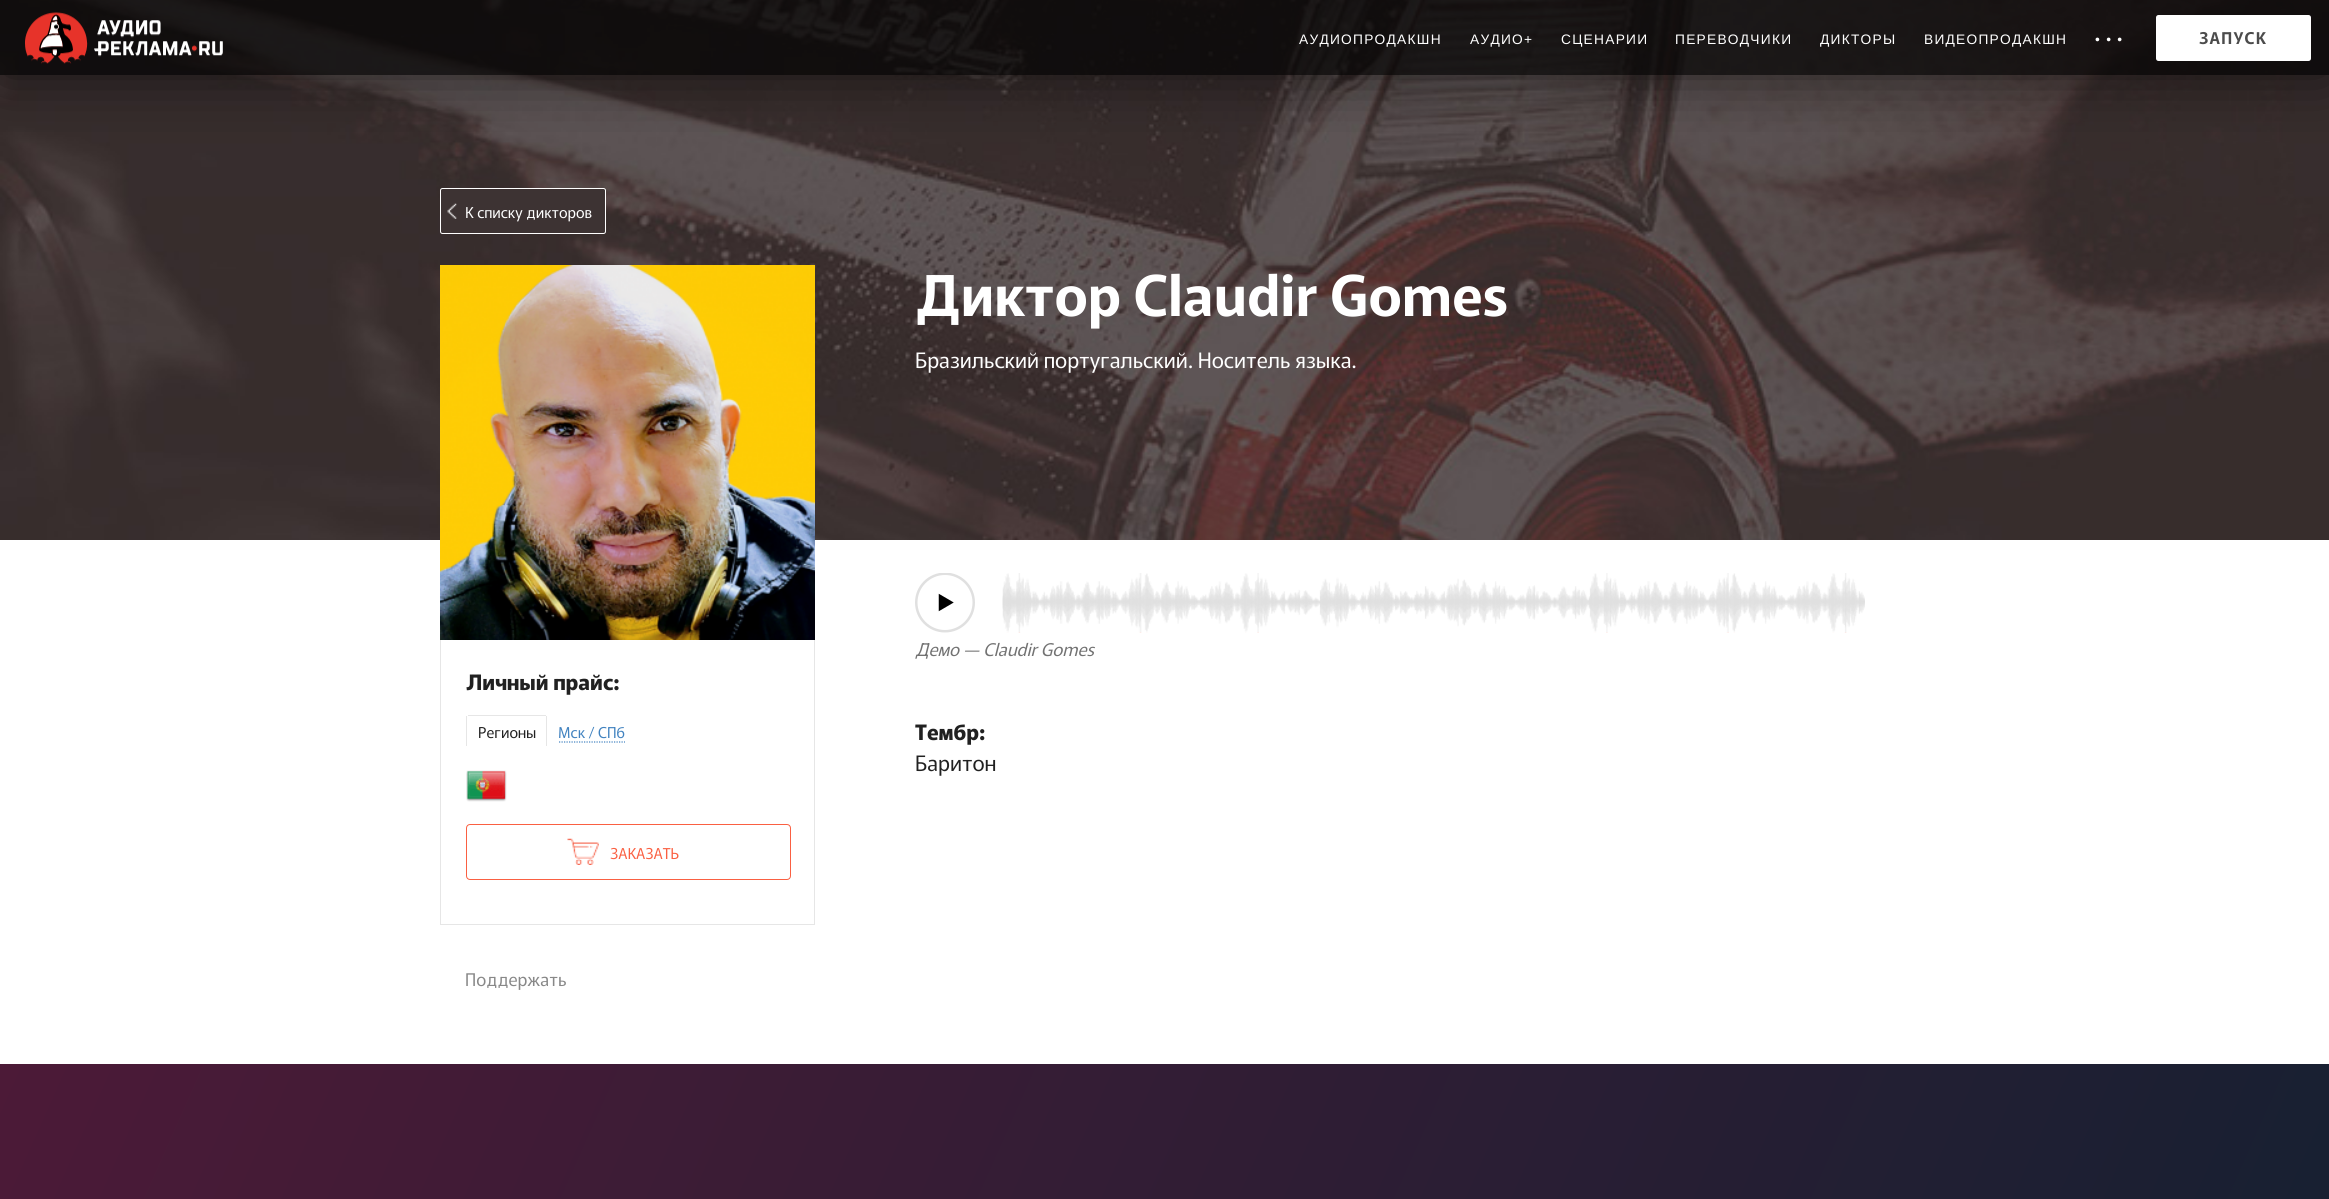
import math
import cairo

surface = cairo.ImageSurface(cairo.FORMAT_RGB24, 2329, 1199)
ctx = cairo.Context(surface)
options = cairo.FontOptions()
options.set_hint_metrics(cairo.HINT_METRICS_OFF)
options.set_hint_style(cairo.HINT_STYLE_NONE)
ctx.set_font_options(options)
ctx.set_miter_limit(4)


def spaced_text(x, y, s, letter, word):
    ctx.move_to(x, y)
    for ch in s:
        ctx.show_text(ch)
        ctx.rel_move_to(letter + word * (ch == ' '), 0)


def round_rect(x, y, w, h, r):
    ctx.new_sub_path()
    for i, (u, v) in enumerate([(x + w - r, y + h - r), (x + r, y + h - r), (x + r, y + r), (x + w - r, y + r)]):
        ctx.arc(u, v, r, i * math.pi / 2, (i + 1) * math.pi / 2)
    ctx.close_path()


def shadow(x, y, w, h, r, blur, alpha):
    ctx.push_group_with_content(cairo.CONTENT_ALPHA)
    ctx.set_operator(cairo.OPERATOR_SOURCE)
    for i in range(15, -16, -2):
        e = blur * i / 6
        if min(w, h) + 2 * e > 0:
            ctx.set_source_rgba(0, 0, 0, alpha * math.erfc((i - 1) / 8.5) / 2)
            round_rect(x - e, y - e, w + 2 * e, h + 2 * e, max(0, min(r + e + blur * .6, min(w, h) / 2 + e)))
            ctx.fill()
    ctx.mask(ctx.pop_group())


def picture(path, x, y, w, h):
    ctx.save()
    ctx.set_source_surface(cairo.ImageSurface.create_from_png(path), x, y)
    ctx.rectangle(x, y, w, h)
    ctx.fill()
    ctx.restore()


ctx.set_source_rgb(1, 1, 1)
ctx.paint()
picture("img1.png", 0, 0, 2329, 540)
ctx.save()
ctx.rectangle(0, 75, 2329, 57)
ctx.clip()
ctx.set_source_rgb(0, 0, 0)
shadow(0, 0, 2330, 75, 0, 31, 0.6)
ctx.restore()
ctx.set_source_rgba(0, 0, 0, 0.7)
ctx.rectangle(0, 0, 2329, 75)
ctx.fill()
picture("img2.png", 25, 12, 198, 52)
ctx.select_font_face("Liberation Sans")
ctx.set_font_size(13.75)
ctx.set_source_rgb(1, 1, 1)
spaced_text(1299, 44, "АУДИОПРОДАКШН", 1.25, 0)
spaced_text(1470, 44, "АУДИО+", 1.25, 0)
spaced_text(1561, 44, "СЦЕНАРИИ", 1.25, 0)
spaced_text(1675, 44, "ПЕРЕВОДЧИКИ", 1.25, 0)
spaced_text(1820, 44, "ДИКТОРЫ", 1.25, 0)
spaced_text(1924, 44, "ВИДЕОПРОДАКШН", 1.25, 0)
spaced_text(2095, 44, "• • •", 1.25, 0)
round_rect(2156, 15, 155, 46, 2.5)
ctx.fill()
ctx.select_font_face("Murecho SemiBold")
ctx.set_font_size(16.25)
ctx.set_source_rgb(0.298, 0.298, 0.298)
spaced_text(2199, 44, "ЗАПУСК", 1.25, 0)
ctx.set_source_rgb(0.239, 0.2, 0.2)
round_rect(440.5, 188.5, 165, 45, 2)
ctx.fill_preserve()
ctx.set_source_rgb(1, 1, 1)
ctx.set_line_width(1)
ctx.stroke()
picture("img3.png", 447, 203, 10, 16)
ctx.select_font_face("Murecho")
ctx.set_font_size(15)
ctx.move_to(465, 218)
ctx.show_text("К списку дикторов")
picture("img4.png", 440, 265, 375, 375)
ctx.set_source_rgb(0.902, 0.902, 0.902)
ctx.rectangle(814, 640, 1, 285)
ctx.fill()
ctx.rectangle(440, 924, 375, 1)
ctx.fill()
ctx.rectangle(440, 640, 1, 285)
ctx.fill()
ctx.select_font_face("Murecho", cairo.FONT_SLANT_NORMAL, cairo.FONT_WEIGHT_BOLD)
ctx.set_font_size(21.25)
ctx.set_source_rgb(0.129, 0.129, 0.129)
ctx.move_to(466, 690)
ctx.show_text("Личный прайс:")
ctx.set_source_rgb(0.902, 0.902, 0.902)
ctx.rectangle(468, 715, 78, 1)
ctx.fill()
ctx.rectangle(546, 716, 1, 30)
ctx.fill()
ctx.rectangle(466, 716, 1, 30)
ctx.fill()
ctx.select_font_face("Murecho")
ctx.set_font_size(15)
ctx.set_source_rgb(0.129, 0.129, 0.129)
ctx.move_to(478, 738)
ctx.show_text("Регионы")
ctx.set_source_rgb(0.259, 0.514, 0.753)
ctx.move_to(558, 738)
ctx.show_text("Мск / СПб")
ctx.new_path()
ctx.move_to(559, 742)
ctx.line_to(625, 742)
ctx.set_line_width(1.2)
ctx.set_dash([1.25, 1.25])
ctx.stroke()
picture("img5.png", 466, 770, 41, 32)
picture("img6.png", 567, 838, 32, 27)
round_rect(466.5, 824.5, 324, 55, 3.5)
ctx.set_source_rgb(0.98, 0.376, 0.259)
ctx.set_line_width(1)
ctx.set_dash([])
ctx.stroke()
ctx.move_to(610, 859)
ctx.show_text("ЗАКАЗАТЬ")
ctx.set_font_size(17.5)
ctx.set_source_rgb(0.533, 0.533, 0.533)
ctx.move_to(465, 986)
ctx.show_text("Поддержать")
ctx.select_font_face("Murecho SemiBold")
ctx.set_font_size(56.25)
ctx.set_source_rgb(1, 1, 1)
ctx.move_to(915, 316)
ctx.show_text("Диктор Claudir Gomes")
ctx.select_font_face("Murecho")
ctx.set_font_size(21.25)
ctx.move_to(915, 368)
ctx.show_text("Бразильский португальский. Носитель языка.")
picture("img7.png", 915, 573, 60, 60)
picture("img8.png", 1002, 573, 863, 60)
ctx.select_font_face("Murecho", cairo.FONT_SLANT_ITALIC)
ctx.set_font_size(17.5)
ctx.set_source_rgb(0.447, 0.447, 0.447)
ctx.move_to(915, 656)
ctx.show_text("Демо — Claudir Gomes")
ctx.select_font_face("Murecho", cairo.FONT_SLANT_NORMAL, cairo.FONT_WEIGHT_BOLD)
ctx.set_font_size(21.25)
ctx.set_source_rgb(0.129, 0.129, 0.129)
ctx.move_to(915, 740)
ctx.show_text("Тембр:")
ctx.select_font_face("Murecho")
ctx.move_to(915, 771)
ctx.show_text("Баритон")
gradient = cairo.LinearGradient(-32, 1136, 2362, 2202)
gradient.add_color_stop_rgba(0, 0.298, 0.102, 0.216, 1)
gradient.add_color_stop_rgba(1, 0.051, 0.129, 0.192, 1)
ctx.set_source(gradient)
ctx.rectangle(0, 1064, 2329, 135)
ctx.fill()
surface.write_to_png("page.png")
